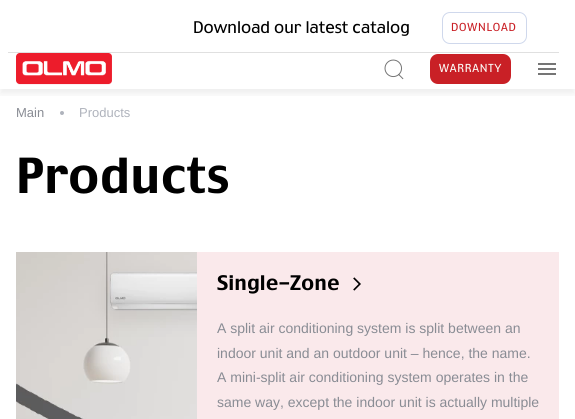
import math
import cairo

surface = cairo.ImageSurface(cairo.FORMAT_RGB24, 575, 419)
ctx = cairo.Context(surface)
options = cairo.FontOptions()
options.set_hint_metrics(cairo.HINT_METRICS_OFF)
options.set_hint_style(cairo.HINT_STYLE_NONE)
ctx.set_font_options(options)
ctx.set_miter_limit(4)


def spaced_text(x, y, s, letter, word):
    ctx.move_to(x, y)
    for ch in s:
        ctx.show_text(ch)
        ctx.rel_move_to(letter + word * (ch == ' '), 0)


def round_rect(x, y, w, h, r):
    ctx.new_sub_path()
    for i, (u, v) in enumerate([(x + w - r, y + h - r), (x + r, y + h - r), (x + r, y + r), (x + w - r, y + r)]):
        ctx.arc(u, v, r, i * math.pi / 2, (i + 1) * math.pi / 2)
    ctx.close_path()


def shadow(x, y, w, h, r, blur, alpha):
    ctx.push_group_with_content(cairo.CONTENT_ALPHA)
    ctx.set_operator(cairo.OPERATOR_SOURCE)
    for i in range(15, -16, -2):
        e = blur * i / 6
        if min(w, h) + 2 * e > 0:
            ctx.set_source_rgba(0, 0, 0, alpha * math.erfc((i - 1) / 8.5) / 2)
            round_rect(x - e, y - e, w + 2 * e, h + 2 * e, max(0, min(r + e + blur * .6, min(w, h) / 2 + e)))
            ctx.fill()
    ctx.mask(ctx.pop_group())


def picture(path, x, y, w, h):
    ctx.save()
    ctx.set_source_surface(cairo.ImageSurface.create_from_png(path), x, y)
    ctx.rectangle(x, y, w, h)
    ctx.fill()
    ctx.restore()


ctx.set_source_rgb(1, 1, 1)
ctx.paint()
ctx.save()
ctx.rectangle(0, 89, 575, 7)
ctx.clip()
ctx.set_source_rgb(0, 0, 0)
shadow(0, 5, 575, 89, 0, 4, 0.07)
ctx.restore()
ctx.select_font_face("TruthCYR")
ctx.set_font_size(16)
ctx.set_source_rgb(0, 0, 0)
ctx.move_to(193, 33)
ctx.show_text("Download our latest catalog")
round_rect(442.5, 12.5, 84, 31, 7.5)
ctx.set_source_rgb(0.812, 0.847, 0.922)
ctx.set_line_width(1)
ctx.stroke()
ctx.set_font_size(11)
ctx.set_source_rgb(0.788, 0.125, 0.149)
spaced_text(451, 31, "DOWNLOAD", 0.75, 0)
ctx.set_source_rgb(0.878, 0.878, 0.878)
ctx.rectangle(8, 52, 551, 1)
ctx.fill()
picture("img1.png", 16, 53, 96, 32)
picture("img2.png", 384, 59, 20, 21)
ctx.set_source_rgb(0.788, 0.125, 0.149)
round_rect(430, 54, 81, 30, 8)
ctx.fill()
ctx.set_source_rgb(0.984, 0.984, 0.965)
spaced_text(439, 72, "WARRANTY", 0.75, 0)
picture("img3.png", 538, 63, 18, 12)
ctx.select_font_face("Liberation Sans")
ctx.set_font_size(13)
ctx.set_source_rgb(0.537, 0.549, 0.58)
ctx.move_to(16, 117)
ctx.show_text("Main")
ctx.set_source_rgb(0.686, 0.702, 0.737)
ctx.new_path()
ctx.arc(62, 113, 2, 0, 2 * math.pi)
ctx.fill()
ctx.move_to(79, 117)
ctx.show_text("Products")
ctx.select_font_face("TruthCYR Medium")
ctx.set_font_size(48)
ctx.set_source_rgb(0, 0, 0)
ctx.move_to(16, 193)
ctx.show_text("Products")
picture("img4.png", 16, 252, 181, 167)
ctx.set_source_rgb(0.98, 0.914, 0.918)
ctx.rectangle(197, 252, 362, 167)
ctx.fill()
ctx.set_font_size(20)
ctx.set_source_rgb(0, 0, 0)
ctx.move_to(217, 290)
ctx.show_text("Single-Zone")
picture("img5.png", 353, 277, 8, 14)
ctx.select_font_face("Liberation Sans")
ctx.set_font_size(14)
ctx.set_source_rgb(0.537, 0.549, 0.58)
ctx.move_to(217, 333)
ctx.show_text("A split air conditioning system is split between an")
ctx.move_to(217, 358)
ctx.show_text("indoor unit and an outdoor unit – hence, the name.")
ctx.move_to(217, 382)
ctx.show_text("A mini-split air conditioning system operates in the")
ctx.move_to(217, 407)
ctx.show_text("same way, except the indoor unit is actually multiple")
surface.write_to_png("page.png")
